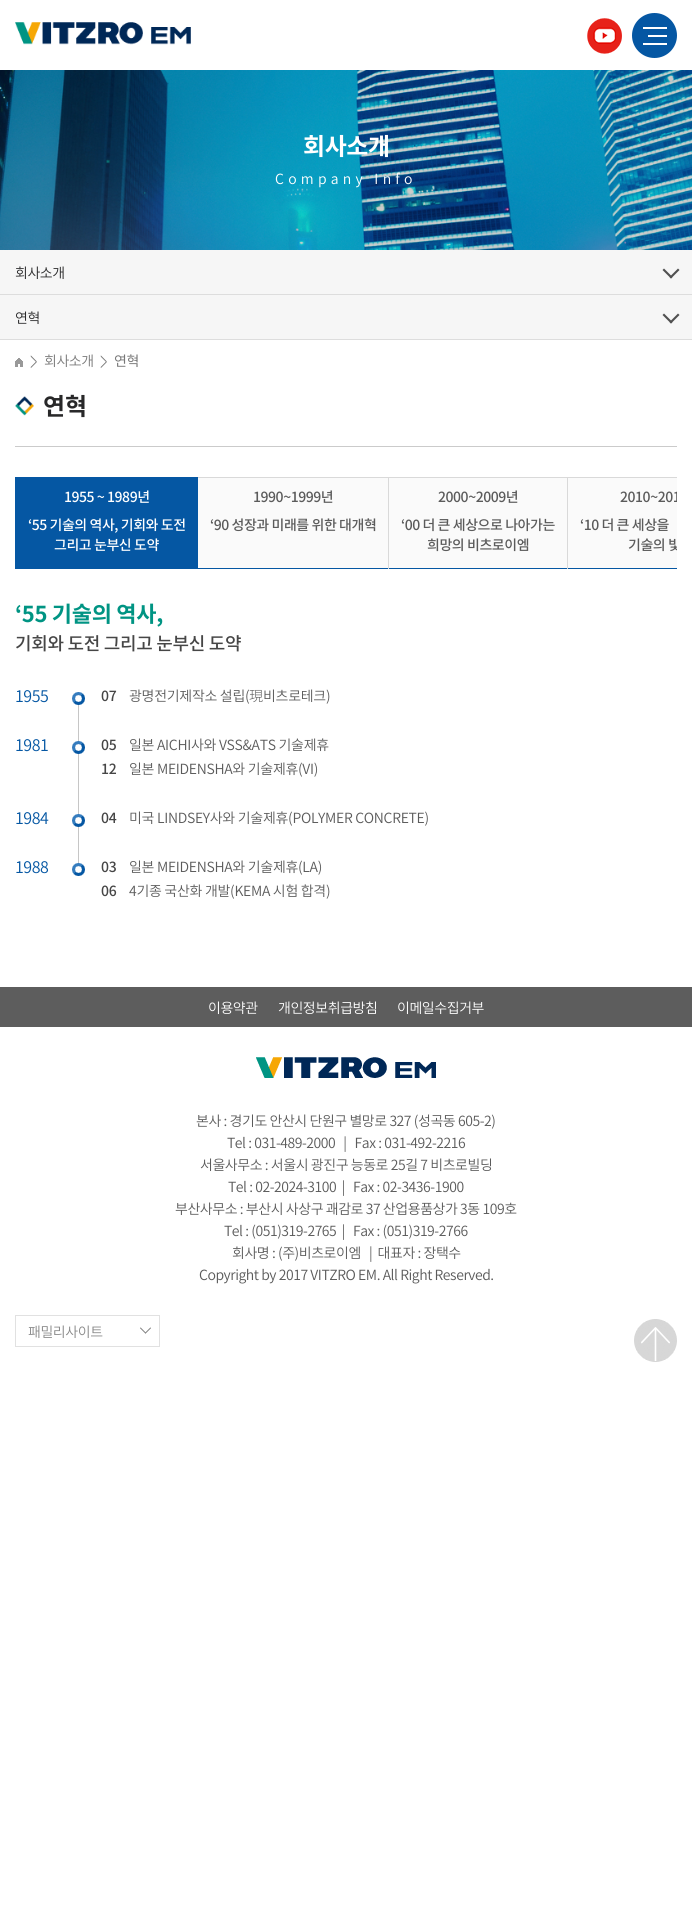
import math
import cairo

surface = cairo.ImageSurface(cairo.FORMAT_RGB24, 692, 1914)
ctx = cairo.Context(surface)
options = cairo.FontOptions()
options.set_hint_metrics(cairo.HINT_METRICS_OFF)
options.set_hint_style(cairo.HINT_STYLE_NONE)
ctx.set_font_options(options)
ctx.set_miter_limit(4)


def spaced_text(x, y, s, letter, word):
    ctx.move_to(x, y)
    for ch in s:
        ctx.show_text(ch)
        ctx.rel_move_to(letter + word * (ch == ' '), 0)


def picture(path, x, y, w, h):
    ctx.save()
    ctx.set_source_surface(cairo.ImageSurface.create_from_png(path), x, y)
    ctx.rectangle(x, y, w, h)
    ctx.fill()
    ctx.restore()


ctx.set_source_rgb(1, 1, 1)
ctx.paint()
picture("img1.png", 15, 22, 176, 23)
picture("img2.png", 587, 18, 35, 36)
ctx.set_source_rgb(0.02, 0.341, 0.639)
ctx.arc(654.5, 35.5, 22.5, 0, 2 * math.pi)
ctx.fill()
ctx.set_source_rgb(1, 1, 1)
ctx.rectangle(648, 35, 19, 2)
ctx.fill()
ctx.rectangle(643, 27, 24, 2)
ctx.fill()
ctx.rectangle(643, 43, 24, 2)
ctx.fill()
picture("img3.png", 0, 70, 692, 180)
ctx.select_font_face("Noto Sans KR", cairo.FONT_SLANT_NORMAL, cairo.FONT_WEIGHT_BOLD)
ctx.set_font_size(24)
spaced_text(303, 155, "회사소개", -0.45, 0)
ctx.select_font_face("Noto Sans KR Light")
ctx.set_font_size(14)
spaced_text(275, 184, "Company Info", 4.25, 0)
ctx.set_source_rgb(0.961, 0.961, 0.961)
ctx.rectangle(0, 250, 692, 89)
ctx.fill()
ctx.set_source_rgb(0.157, 0.157, 0.161)
spaced_text(15, 278, "회사소개", -0.45, 0)
ctx.set_source_rgb(0.314, 0.314, 0.314)
ctx.new_path()
ctx.move_to(678, 268.5)
ctx.line_to(679.5, 270)
ctx.line_to(671, 278.5)
ctx.line_to(669.5, 277)
ctx.close_path()
ctx.fill()
ctx.new_path()
ctx.move_to(664, 268.5)
ctx.line_to(672.5, 277)
ctx.line_to(671, 278.5)
ctx.line_to(662.5, 270)
ctx.close_path()
ctx.fill()
ctx.set_source_rgb(0.867, 0.867, 0.867)
ctx.rectangle(0, 294, 692, 1)
ctx.fill()
ctx.set_source_rgb(0.157, 0.157, 0.161)
spaced_text(15, 323, "연혁", -0.45, 0)
ctx.set_source_rgb(0.314, 0.314, 0.314)
ctx.new_path()
ctx.move_to(678, 313.5)
ctx.line_to(679.5, 315)
ctx.line_to(671, 323.5)
ctx.line_to(669.5, 322)
ctx.close_path()
ctx.fill()
ctx.new_path()
ctx.move_to(664, 313.5)
ctx.line_to(672.5, 322)
ctx.line_to(671, 323.5)
ctx.line_to(662.5, 315)
ctx.close_path()
ctx.fill()
ctx.set_source_rgb(0.867, 0.867, 0.867)
ctx.rectangle(0, 339, 692, 1)
ctx.fill()
ctx.set_source_rgb(0.796, 0.796, 0.796)
ctx.rectangle(15, 446, 662, 1)
ctx.fill()
picture("img4.png", 15, 358, 8, 9)
ctx.select_font_face("NanumGothic")
ctx.set_source_rgb(0.471, 0.471, 0.471)
spaced_text(30, 366, ">", -0.45, 0)
ctx.select_font_face("Noto Sans KR Light")
spaced_text(44, 366, "회사소개", -0.45, 0)
ctx.select_font_face("NanumGothic")
spaced_text(100, 366, ">", -0.45, 0)
ctx.select_font_face("Noto Sans KR")
spaced_text(114, 366, "연혁", -0.45, 0)
picture("img5.png", 15, 396, 19, 20)
ctx.select_font_face("Noto Sans KR", cairo.FONT_SLANT_NORMAL, cairo.FONT_WEIGHT_BOLD)
ctx.set_font_size(24)
ctx.set_source_rgb(0.157, 0.157, 0.161)
ctx.move_to(43, 415)
ctx.show_text("연혁")
ctx.set_source_rgb(0.02, 0.341, 0.639)
ctx.rectangle(15, 477, 183, 92)
ctx.fill()
ctx.select_font_face("Noto Sans KR Medium")
ctx.set_font_size(14)
ctx.set_source_rgb(1, 1, 1)
spaced_text(64, 502, "1955 ~ 1989년", -0.45, 0)
spaced_text(28, 530, "‘55 기술의 역사, 기회와 도전", -0.45, 0)
spaced_text(54, 550, "그리고 눈부신 도약", -0.45, 0)
ctx.set_source_rgb(0.98, 0.98, 0.98)
ctx.rectangle(198, 478, 190, 90)
ctx.fill()
ctx.set_source_rgb(0.851, 0.851, 0.851)
ctx.rectangle(198, 477, 479, 1)
ctx.fill()
ctx.set_source_rgb(0.02, 0.341, 0.639)
ctx.rectangle(198, 568, 479, 1)
ctx.fill()
ctx.set_source_rgb(0.357, 0.357, 0.357)
spaced_text(253, 502, "1990~1999년", -0.45, 0)
spaced_text(210, 530, "‘90 성장과 미래를 위한 대개혁", -0.45, 0)
ctx.set_source_rgb(0.98, 0.98, 0.98)
ctx.rectangle(389, 478, 178, 90)
ctx.fill()
ctx.set_source_rgb(0.851, 0.851, 0.851)
ctx.rectangle(388, 477, 1, 92)
ctx.fill()
ctx.set_source_rgb(0.357, 0.357, 0.357)
spaced_text(438, 502, "2000~2009년", -0.45, 0)
spaced_text(401, 530, "‘00 더 큰 세상으로 나아가는", -0.45, 0)
spaced_text(427, 550, "희망의 비츠로이엠", -0.45, 0)
ctx.set_source_rgb(0.98, 0.98, 0.98)
ctx.rectangle(568, 478, 109, 90)
ctx.fill()
ctx.set_source_rgb(0.851, 0.851, 0.851)
ctx.rectangle(567, 477, 1, 92)
ctx.fill()
ctx.save()
ctx.rectangle(15, 477, 662, 92)
ctx.clip()
ctx.set_source_rgb(0.357, 0.357, 0.357)
spaced_text(620, 502, "2010~201", -0.45, 0)
ctx.restore()
ctx.set_source_rgb(0.357, 0.357, 0.357)
spaced_text(580, 530, "‘10 더 큰 세상을", -0.45, 0)
ctx.save()
ctx.rectangle(15, 477, 662, 92)
ctx.clip()
spaced_text(628, 550, "기술의 빛", -0.45, 0)
ctx.restore()
ctx.select_font_face("Noto Sans KR", cairo.FONT_SLANT_NORMAL, cairo.FONT_WEIGHT_BOLD)
ctx.set_font_size(22)
ctx.set_source_rgb(0, 0.58, 0.514)
spaced_text(15, 622, "‘55 기술의 역사,", -0.3, 0)
ctx.select_font_face("Noto Sans KR Medium")
ctx.set_font_size(18)
ctx.set_source_rgb(0.275, 0.275, 0.275)
spaced_text(15, 650, "기회와 도전 그리고 눈부신 도약", -0.3, 0)
picture("img6.png", 72, 692, 13, 13)
ctx.select_font_face("Noto Sans KR Light")
ctx.set_font_size(16)
ctx.set_source_rgb(0.02, 0.341, 0.639)
spaced_text(15, 702, "1955", -0.45, 0)
ctx.select_font_face("Noto Sans KR Medium")
ctx.set_font_size(14)
ctx.set_source_rgb(0.275, 0.275, 0.275)
spaced_text(101, 701, "07", -0.3, 0)
ctx.select_font_face("Noto Sans KR Light")
ctx.set_source_rgb(0.357, 0.357, 0.357)
spaced_text(129, 701, "광명전기제작소 설립(", -0.3, 0)
ctx.select_font_face("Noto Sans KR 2 Light")
spaced_text(249, 701, "現", -0.3, 0)
ctx.select_font_face("Noto Sans KR Light")
spaced_text(263, 701, "비츠로테크)", -0.3, 0)
ctx.set_source_rgb(0.776, 0.776, 0.776)
ctx.rectangle(78, 705, 1, 163)
ctx.fill()
picture("img6.png", 72, 741, 13, 13)
ctx.set_font_size(16)
ctx.set_source_rgb(0.02, 0.341, 0.639)
spaced_text(15, 751, "1981", -0.45, 0)
ctx.select_font_face("Noto Sans KR Medium")
ctx.set_font_size(14)
ctx.set_source_rgb(0.275, 0.275, 0.275)
spaced_text(101, 750, "05", -0.3, 0)
ctx.select_font_face("Noto Sans KR Light")
ctx.set_source_rgb(0.357, 0.357, 0.357)
spaced_text(129, 750, "일본 AICHI사와 VSS&ATS 기술제휴", -0.3, 0)
ctx.select_font_face("Noto Sans KR Medium")
ctx.set_source_rgb(0.275, 0.275, 0.275)
spaced_text(101, 774, "12", -0.3, 0)
ctx.select_font_face("Noto Sans KR Light")
ctx.set_source_rgb(0.357, 0.357, 0.357)
spaced_text(129, 774, "일본 MEIDENSHA와 기술제휴(VI)", -0.3, 0)
picture("img6.png", 72, 814, 13, 13)
ctx.set_font_size(16)
ctx.set_source_rgb(0.02, 0.341, 0.639)
spaced_text(15, 824, "1984", -0.45, 0)
ctx.select_font_face("Noto Sans KR Medium")
ctx.set_font_size(14)
ctx.set_source_rgb(0.275, 0.275, 0.275)
spaced_text(101, 823, "04", -0.3, 0)
ctx.select_font_face("Noto Sans KR Light")
ctx.set_source_rgb(0.357, 0.357, 0.357)
spaced_text(129, 823, "미국 LINDSEY사와 기술제휴(POLYMER CONCRETE)", -0.3, 0)
picture("img6.png", 72, 863, 13, 13)
ctx.set_font_size(16)
ctx.set_source_rgb(0.02, 0.341, 0.639)
spaced_text(15, 873, "1988", -0.45, 0)
ctx.select_font_face("Noto Sans KR Medium")
ctx.set_font_size(14)
ctx.set_source_rgb(0.275, 0.275, 0.275)
spaced_text(101, 872, "03", -0.3, 0)
ctx.select_font_face("Noto Sans KR Light")
ctx.set_source_rgb(0.357, 0.357, 0.357)
spaced_text(129, 872, "일본 MEIDENSHA와 기술제휴(LA)", -0.3, 0)
ctx.select_font_face("Noto Sans KR Medium")
ctx.set_source_rgb(0.275, 0.275, 0.275)
spaced_text(101, 896, "06", -0.3, 0)
ctx.select_font_face("Noto Sans KR Light")
ctx.set_source_rgb(0.357, 0.357, 0.357)
spaced_text(129, 896, "4기종 국산화 개발(KEMA 시험 합격)", -0.3, 0)
ctx.set_source_rgb(0.365, 0.365, 0.365)
ctx.rectangle(0, 987, 692, 40)
ctx.fill()
ctx.set_source_rgb(1, 1, 1)
spaced_text(208, 1013, "이용약관", -0.45, 0)
spaced_text(278, 1013, "개인정보취급방침", -0.45, 0)
spaced_text(397, 1013, "이메일수집거부", -0.45, 0)
picture("img7.png", 256, 1057, 180, 21)
ctx.set_source_rgb(0.357, 0.357, 0.357)
spaced_text(196, 1126, "본사 : 경기도 안산시 단원구 별망로 327 (성곡동 605-2)", -0.45, 0)
spaced_text(227, 1148, "Tel : 031-489-2000   |   Fax : 031-492-2216", -0.45, 0)
spaced_text(200, 1170, "서울사무소 : 서울시 광진구 능동로 25길 7 비츠로빌딩", -0.45, 0)
spaced_text(228, 1192, "Tel : 02-2024-3100  |   Fax : 02-3436-1900", -0.45, 0)
spaced_text(175, 1214, "부산사무소 : 부산시 사상구 괘감로 37 산업용품상가 3동 109호", -0.45, 0)
spaced_text(224, 1236, "Tel : (051)319-2765  |   Fax : (051)319-2766", -0.45, 0)
spaced_text(232, 1258, "회사명 : (주)비츠로이엠   |  대표자 : 장택수", -0.45, 0)
spaced_text(199, 1280, "Copyright by 2017 VITZRO EM. All Right Reserved.", -0.45, 0)
picture("img8.png", 15, 1315, 145, 32)
ctx.set_source_rgb(0.533, 0.533, 0.533)
spaced_text(28, 1337, "패밀리사이트", -0.45, 0)
picture("img9.png", 634, 1319, 43, 43)
surface.write_to_png("page.png")
